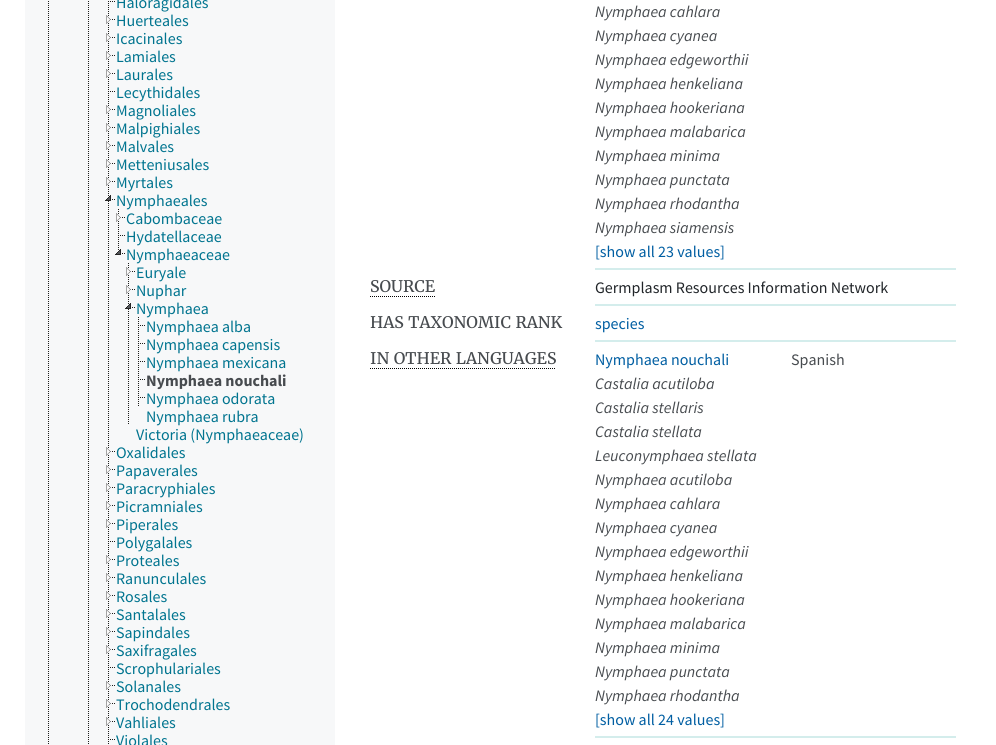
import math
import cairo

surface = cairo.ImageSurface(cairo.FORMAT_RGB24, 996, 745)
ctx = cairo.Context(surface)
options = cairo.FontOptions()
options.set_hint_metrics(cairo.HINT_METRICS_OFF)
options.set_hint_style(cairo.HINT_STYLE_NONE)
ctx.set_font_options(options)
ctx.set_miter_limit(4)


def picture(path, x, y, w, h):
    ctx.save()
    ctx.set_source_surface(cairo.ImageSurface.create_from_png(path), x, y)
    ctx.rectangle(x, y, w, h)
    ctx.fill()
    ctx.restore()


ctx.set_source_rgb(1, 1, 1)
ctx.paint()
ctx.set_source_rgb(0.965, 0.969, 0.973)
ctx.rectangle(25, 0, 310, 745)
ctx.fill()
picture("img1.png", 48, 1, 1, 743)
picture("img1.png", 88, 1, 1, 743)
picture("img2.png", 108, 1, 1, 9)
picture("img3.png", 110, 1, 5, 1)
ctx.select_font_face("Source Sans Pro")
ctx.set_font_size(16)
ctx.set_source_rgb(0, 0.455, 0.561)
ctx.move_to(116, 8)
ctx.show_text("Haloragidales")
picture("img4.png", 108, 11, 1, 17)
picture("img5.png", 106, 15, 9, 9)
ctx.move_to(116, 26)
ctx.show_text("Huerteales")
picture("img4.png", 108, 29, 1, 17)
picture("img5.png", 106, 33, 9, 9)
ctx.move_to(116, 44)
ctx.show_text("Icacinales")
picture("img4.png", 108, 47, 1, 17)
picture("img5.png", 106, 51, 9, 9)
ctx.move_to(116, 62)
ctx.show_text("Lamiales")
picture("img4.png", 108, 65, 1, 17)
picture("img5.png", 106, 69, 9, 9)
ctx.move_to(116, 80)
ctx.show_text("Laurales")
picture("img4.png", 108, 83, 1, 17)
picture("img3.png", 110, 91, 5, 1)
ctx.move_to(116, 98)
ctx.show_text("Lecythidales")
picture("img4.png", 108, 101, 1, 17)
picture("img5.png", 106, 105, 9, 9)
ctx.move_to(116, 116)
ctx.show_text("Magnoliales")
picture("img4.png", 108, 119, 1, 17)
picture("img5.png", 106, 123, 9, 9)
ctx.move_to(116, 134)
ctx.show_text("Malpighiales")
picture("img4.png", 108, 137, 1, 17)
picture("img5.png", 106, 141, 9, 9)
ctx.move_to(116, 152)
ctx.show_text("Malvales")
picture("img4.png", 108, 155, 1, 17)
picture("img5.png", 106, 159, 9, 9)
ctx.move_to(116, 170)
ctx.show_text("Metteniusales")
picture("img4.png", 108, 173, 1, 17)
picture("img5.png", 106, 177, 9, 9)
ctx.move_to(116, 188)
ctx.show_text("Myrtales")
picture("img6.png", 108, 191, 1, 251)
picture("img7.png", 105, 195, 10, 6)
picture("img4.png", 118, 209, 1, 17)
ctx.move_to(116, 206)
ctx.show_text("Nymphaeales")
picture("img5.png", 116, 213, 9, 9)
ctx.move_to(126, 224)
ctx.show_text("Cabombaceae")
picture("img4.png", 118, 227, 1, 17)
picture("img3.png", 120, 235, 5, 1)
ctx.move_to(126, 242)
ctx.show_text("Hydatellaceae")
picture("img8.png", 115, 245, 10, 10)
picture("img4.png", 128, 263, 1, 17)
ctx.move_to(126, 260)
ctx.show_text("Nymphaeaceae")
picture("img5.png", 126, 267, 9, 9)
ctx.move_to(136, 278)
ctx.show_text("Euryale")
picture("img4.png", 128, 281, 1, 17)
picture("img5.png", 126, 285, 9, 9)
ctx.move_to(136, 296)
ctx.show_text("Nuphar")
picture("img9.png", 128, 299, 1, 125)
picture("img7.png", 125, 303, 10, 6)
picture("img4.png", 138, 317, 1, 17)
ctx.move_to(136, 314)
ctx.show_text("Nymphaea")
picture("img3.png", 140, 325, 5, 1)
ctx.move_to(146, 332)
ctx.show_text("Nymphaea alba")
picture("img4.png", 138, 335, 1, 17)
picture("img3.png", 140, 343, 5, 1)
ctx.move_to(146, 350)
ctx.show_text("Nymphaea capensis")
picture("img4.png", 138, 353, 1, 17)
picture("img3.png", 140, 361, 5, 1)
ctx.move_to(146, 368)
ctx.show_text("Nymphaea mexicana")
picture("img4.png", 138, 371, 1, 17)
picture("img3.png", 140, 379, 5, 1)
ctx.select_font_face("Source Sans Pro", cairo.FONT_SLANT_NORMAL, cairo.FONT_WEIGHT_BOLD)
ctx.set_source_rgb(0.278, 0.294, 0.31)
ctx.move_to(146, 386)
ctx.show_text("Nymphaea nouchali")
picture("img4.png", 138, 389, 1, 17)
picture("img3.png", 140, 397, 5, 1)
ctx.select_font_face("Source Sans Pro")
ctx.set_source_rgb(0, 0.455, 0.561)
ctx.move_to(146, 404)
ctx.show_text("Nymphaea odorata")
ctx.move_to(146, 422)
ctx.show_text("Nymphaea rubra")
ctx.move_to(136, 440)
ctx.show_text("Victoria (Nymphaeaceae)")
picture("img4.png", 108, 443, 1, 17)
picture("img5.png", 106, 447, 9, 9)
ctx.move_to(116, 458)
ctx.show_text("Oxalidales")
picture("img4.png", 108, 461, 1, 17)
picture("img5.png", 106, 465, 9, 9)
ctx.move_to(116, 476)
ctx.show_text("Papaverales")
picture("img4.png", 108, 479, 1, 17)
picture("img5.png", 106, 483, 9, 9)
ctx.move_to(116, 494)
ctx.show_text("Paracryphiales")
picture("img4.png", 108, 497, 1, 17)
picture("img5.png", 106, 501, 9, 9)
ctx.move_to(116, 512)
ctx.show_text("Picramniales")
picture("img4.png", 108, 515, 1, 17)
picture("img5.png", 106, 519, 9, 9)
ctx.move_to(116, 530)
ctx.show_text("Piperales")
picture("img4.png", 108, 533, 1, 17)
picture("img3.png", 110, 541, 5, 1)
ctx.move_to(116, 548)
ctx.show_text("Polygalales")
picture("img4.png", 108, 551, 1, 17)
picture("img5.png", 106, 555, 9, 9)
ctx.move_to(116, 566)
ctx.show_text("Proteales")
picture("img4.png", 108, 569, 1, 17)
picture("img5.png", 106, 573, 9, 9)
ctx.move_to(116, 584)
ctx.show_text("Ranunculales")
picture("img4.png", 108, 587, 1, 17)
picture("img5.png", 106, 591, 9, 9)
ctx.move_to(116, 602)
ctx.show_text("Rosales")
picture("img4.png", 108, 605, 1, 17)
picture("img5.png", 106, 609, 9, 9)
ctx.move_to(116, 620)
ctx.show_text("Santalales")
picture("img4.png", 108, 623, 1, 17)
picture("img5.png", 106, 627, 9, 9)
ctx.move_to(116, 638)
ctx.show_text("Sapindales")
picture("img4.png", 108, 641, 1, 17)
picture("img5.png", 106, 645, 9, 9)
ctx.move_to(116, 656)
ctx.show_text("Saxifragales")
picture("img4.png", 108, 659, 1, 17)
picture("img3.png", 110, 667, 5, 1)
ctx.move_to(116, 674)
ctx.show_text("Scrophulariales")
picture("img4.png", 108, 677, 1, 17)
picture("img5.png", 106, 681, 9, 9)
ctx.move_to(116, 692)
ctx.show_text("Solanales")
picture("img4.png", 108, 695, 1, 17)
picture("img5.png", 106, 699, 9, 9)
ctx.move_to(116, 710)
ctx.show_text("Trochodendrales")
picture("img4.png", 108, 713, 1, 17)
picture("img5.png", 106, 717, 9, 9)
ctx.move_to(116, 728)
ctx.show_text("Vahliales")
picture("img10.png", 108, 731, 1, 13)
picture("img3.png", 110, 739, 5, 1)
ctx.move_to(116, 746)
ctx.show_text("Violales")
ctx.set_source_rgb(0.831, 0.929, 0.922)
ctx.rectangle(595, 268, 361, 2)
ctx.fill()
ctx.select_font_face("Source Sans Pro", cairo.FONT_SLANT_ITALIC)
ctx.set_source_rgb(0.278, 0.294, 0.31)
ctx.move_to(595, 17)
ctx.show_text("Nymphaea cahlara")
ctx.move_to(595, 41)
ctx.show_text("Nymphaea cyanea")
ctx.move_to(595, 65)
ctx.show_text("Nymphaea edgeworthii")
ctx.move_to(595, 89)
ctx.show_text("Nymphaea henkeliana")
ctx.move_to(595, 113)
ctx.show_text("Nymphaea hookeriana")
ctx.move_to(595, 137)
ctx.show_text("Nymphaea malabarica")
ctx.move_to(595, 161)
ctx.show_text("Nymphaea minima")
ctx.move_to(595, 185)
ctx.show_text("Nymphaea punctata")
ctx.move_to(595, 209)
ctx.show_text("Nymphaea rhodantha")
ctx.move_to(595, 233)
ctx.show_text("Nymphaea siamensis")
ctx.select_font_face("Source Sans Pro")
ctx.set_source_rgb(0, 0.369, 0.635)
ctx.move_to(595, 257)
ctx.show_text("[show all 23 values]")
ctx.select_font_face("Merriweather")
ctx.set_source_rgb(0.278, 0.294, 0.31)
ctx.move_to(370, 292)
ctx.show_text("SOURCE")
ctx.new_path()
ctx.move_to(370, 296.5)
ctx.line_to(435, 296.5)
ctx.set_source_rgb(0, 0, 0)
ctx.set_line_width(1)
ctx.set_dash([1, 1])
ctx.stroke()
ctx.set_source_rgb(0.831, 0.929, 0.922)
ctx.rectangle(595, 304, 361, 2)
ctx.fill()
ctx.select_font_face("Source Sans Pro")
ctx.set_source_rgb(0.129, 0.145, 0.161)
ctx.move_to(595, 293)
ctx.show_text("Germplasm Resources Information Network")
ctx.select_font_face("Merriweather")
ctx.set_source_rgb(0.278, 0.294, 0.31)
ctx.move_to(370, 328)
ctx.show_text("HAS TAXONOMIC RANK")
ctx.set_source_rgb(0.831, 0.929, 0.922)
ctx.rectangle(595, 340, 361, 2)
ctx.fill()
ctx.select_font_face("Source Sans Pro")
ctx.set_source_rgb(0, 0.369, 0.635)
ctx.move_to(595, 329)
ctx.show_text("species")
ctx.select_font_face("Merriweather")
ctx.set_source_rgb(0.278, 0.294, 0.31)
ctx.move_to(370, 364)
ctx.show_text("IN OTHER LANGUAGES")
ctx.new_path()
ctx.move_to(370, 368.5)
ctx.line_to(556, 368.5)
ctx.set_source_rgb(0, 0, 0)
ctx.stroke()
ctx.set_source_rgb(0.831, 0.929, 0.922)
ctx.rectangle(595, 736, 361, 2)
ctx.fill()
ctx.select_font_face("Source Sans Pro")
ctx.set_source_rgb(0, 0.369, 0.635)
ctx.move_to(595, 365)
ctx.show_text("Nymphaea nouchali")
ctx.set_source_rgb(0.278, 0.294, 0.31)
ctx.move_to(791, 365)
ctx.show_text("Spanish")
ctx.select_font_face("Source Sans Pro", cairo.FONT_SLANT_ITALIC)
ctx.move_to(595, 389)
ctx.show_text("Castalia acutiloba")
ctx.move_to(595, 413)
ctx.show_text("Castalia stellaris")
ctx.move_to(595, 437)
ctx.show_text("Castalia stellata")
ctx.move_to(595, 461)
ctx.show_text("Leuconymphaea stellata")
ctx.move_to(595, 485)
ctx.show_text("Nymphaea acutiloba")
ctx.move_to(595, 509)
ctx.show_text("Nymphaea cahlara")
ctx.move_to(595, 533)
ctx.show_text("Nymphaea cyanea")
ctx.move_to(595, 557)
ctx.show_text("Nymphaea edgeworthii")
ctx.move_to(595, 581)
ctx.show_text("Nymphaea henkeliana")
ctx.move_to(595, 605)
ctx.show_text("Nymphaea hookeriana")
ctx.move_to(595, 629)
ctx.show_text("Nymphaea malabarica")
ctx.move_to(595, 653)
ctx.show_text("Nymphaea minima")
ctx.move_to(595, 677)
ctx.show_text("Nymphaea punctata")
ctx.move_to(595, 701)
ctx.show_text("Nymphaea rhodantha")
ctx.select_font_face("Source Sans Pro")
ctx.set_source_rgb(0, 0.369, 0.635)
ctx.move_to(595, 725)
ctx.show_text("[show all 24 values]")
surface.write_to_png("page.png")
